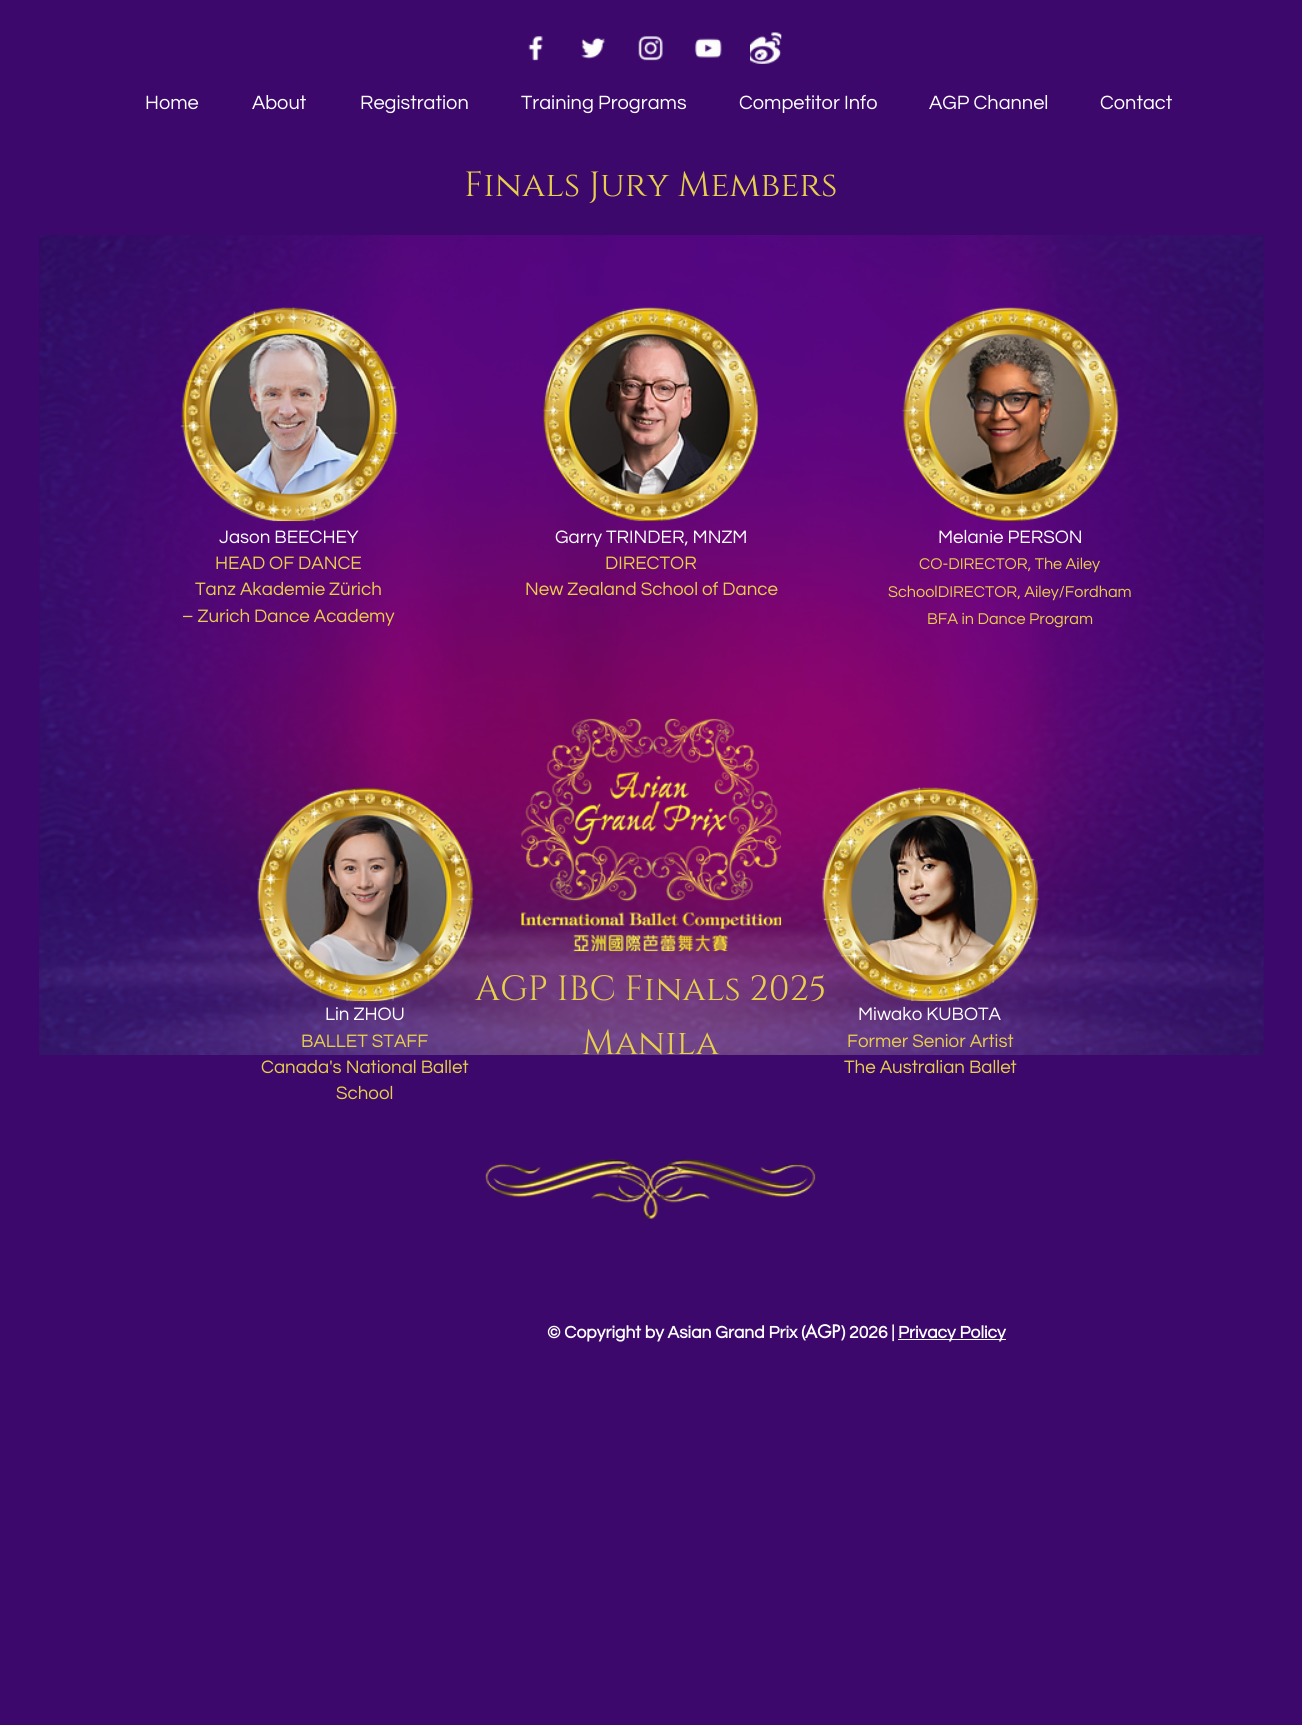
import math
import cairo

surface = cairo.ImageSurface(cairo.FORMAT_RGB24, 1302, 1725)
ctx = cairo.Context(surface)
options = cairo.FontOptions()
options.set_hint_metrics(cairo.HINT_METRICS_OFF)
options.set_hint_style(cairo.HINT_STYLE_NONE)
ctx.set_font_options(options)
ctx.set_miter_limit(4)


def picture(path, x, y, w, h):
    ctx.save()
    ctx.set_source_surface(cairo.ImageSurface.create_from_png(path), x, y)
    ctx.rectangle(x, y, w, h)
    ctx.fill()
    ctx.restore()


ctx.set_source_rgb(0.235, 0.035, 0.424)
ctx.paint()
picture("img1.png", 528, 36, 15, 25)
picture("img2.png", 581, 37, 25, 22)
picture("img3.png", 638, 36, 25, 25)
picture("img4.png", 694, 38, 28, 20)
picture("img5.png", 750, 32, 32, 32)
ctx.select_font_face("Questrial")
ctx.set_font_size(20)
ctx.set_source_rgb(1, 1, 1)
ctx.move_to(145, 109)
ctx.show_text("Home")
ctx.move_to(252, 109)
ctx.show_text("About")
ctx.move_to(360, 109)
ctx.show_text("Registration")
ctx.move_to(521, 109)
ctx.show_text("Training Programs")
ctx.move_to(739, 109)
ctx.show_text("Competitor Info")
ctx.move_to(929, 109)
ctx.show_text("AGP Channel")
ctx.move_to(1100, 109)
ctx.show_text("Contact")
ctx.select_font_face("Cinzel")
ctx.set_font_size(35)
ctx.set_source_rgb(0.91, 0.808, 0.302)
ctx.move_to(464, 196)
ctx.show_text("Finals Jury Members")
picture("img6.png", 39, 235, 1225, 820)
picture("img7.png", 180, 307, 218, 215)
picture("img8.png", 542, 307, 218, 215)
picture("img9.png", 902, 307, 218, 215)
ctx.select_font_face("Questrial")
ctx.set_font_size(18.75)
ctx.set_source_rgb(1, 1, 1)
ctx.move_to(219, 543)
ctx.show_text("Jason BEECHEY")
ctx.set_source_rgb(0.91, 0.808, 0.302)
ctx.move_to(215, 569)
ctx.show_text("HEAD OF DANCE")
ctx.move_to(195, 595)
ctx.show_text("Tanz Akademie Zürich")
ctx.move_to(182, 622)
ctx.show_text("– Zurich Dance Academy")
ctx.set_source_rgb(1, 1, 1)
ctx.move_to(555, 543)
ctx.show_text("Garry TRINDER, MNZM")
ctx.set_source_rgb(0.91, 0.808, 0.302)
ctx.move_to(605, 569)
ctx.show_text("DIRECTOR")
ctx.move_to(525, 595)
ctx.show_text("New Zealand School of Dance")
ctx.set_source_rgb(1, 1, 1)
ctx.move_to(938, 543)
ctx.show_text("Melanie PERSON")
ctx.set_font_size(16.25)
ctx.set_source_rgb(0.91, 0.808, 0.302)
ctx.move_to(919, 569)
ctx.show_text("CO-DIRECTOR, The Ailey")
ctx.move_to(888, 597)
ctx.show_text("SchoolDIRECTOR, Ailey/Fordham")
ctx.move_to(927, 624)
ctx.show_text("BFA in Dance Program")
picture("img10.png", 256, 787, 218, 215)
picture("img11.png", 521, 718, 261, 234)
picture("img12.png", 821, 787, 219, 215)
ctx.set_font_size(18.75)
ctx.set_source_rgb(1, 1, 1)
ctx.move_to(325, 1020)
ctx.show_text("Lin ZHOU")
ctx.set_source_rgb(0.91, 0.808, 0.302)
ctx.move_to(301, 1047)
ctx.show_text("BALLET STAFF")
ctx.move_to(261, 1073)
ctx.show_text("Canada's National Ballet")
ctx.move_to(336, 1099)
ctx.show_text("School")
ctx.select_font_face("Cinzel")
ctx.set_font_size(35)
ctx.move_to(475, 1000)
ctx.show_text("AGP IBC Finals 2025")
ctx.move_to(582, 1054)
ctx.show_text("Manila")
ctx.select_font_face("Questrial")
ctx.set_font_size(18.75)
ctx.set_source_rgb(1, 1, 1)
ctx.move_to(858, 1020)
ctx.show_text("Miwako KUBOTA")
ctx.set_source_rgb(0.91, 0.808, 0.302)
ctx.move_to(847, 1047)
ctx.show_text("Former Senior Artist")
ctx.move_to(844, 1073)
ctx.show_text("The Australian Ballet")
picture("img13.png", 485, 1158, 331, 61)
ctx.select_font_face("Questrial", cairo.FONT_SLANT_NORMAL, cairo.FONT_WEIGHT_BOLD)
ctx.set_font_size(17.5)
ctx.set_source_rgb(1, 1, 1)
ctx.move_to(547, 1338)
ctx.show_text("© Copyright by Asian Grand Prix (")
ctx.select_font_face("futura", cairo.FONT_SLANT_NORMAL, cairo.FONT_WEIGHT_BOLD)
ctx.move_to(805, 1338)
ctx.show_text("AGP")
ctx.select_font_face("Questrial", cairo.FONT_SLANT_NORMAL, cairo.FONT_WEIGHT_BOLD)
ctx.move_to(841, 1338)
ctx.show_text(") 2026 |")
ctx.rectangle(898, 1339, 108, 1)
ctx.fill()
ctx.move_to(898, 1338)
ctx.show_text("Privacy Policy")
surface.write_to_png("page.png")
